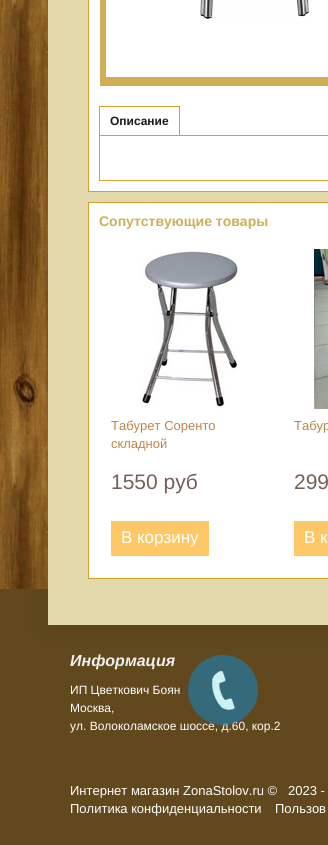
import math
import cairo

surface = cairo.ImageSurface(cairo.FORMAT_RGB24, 328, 845)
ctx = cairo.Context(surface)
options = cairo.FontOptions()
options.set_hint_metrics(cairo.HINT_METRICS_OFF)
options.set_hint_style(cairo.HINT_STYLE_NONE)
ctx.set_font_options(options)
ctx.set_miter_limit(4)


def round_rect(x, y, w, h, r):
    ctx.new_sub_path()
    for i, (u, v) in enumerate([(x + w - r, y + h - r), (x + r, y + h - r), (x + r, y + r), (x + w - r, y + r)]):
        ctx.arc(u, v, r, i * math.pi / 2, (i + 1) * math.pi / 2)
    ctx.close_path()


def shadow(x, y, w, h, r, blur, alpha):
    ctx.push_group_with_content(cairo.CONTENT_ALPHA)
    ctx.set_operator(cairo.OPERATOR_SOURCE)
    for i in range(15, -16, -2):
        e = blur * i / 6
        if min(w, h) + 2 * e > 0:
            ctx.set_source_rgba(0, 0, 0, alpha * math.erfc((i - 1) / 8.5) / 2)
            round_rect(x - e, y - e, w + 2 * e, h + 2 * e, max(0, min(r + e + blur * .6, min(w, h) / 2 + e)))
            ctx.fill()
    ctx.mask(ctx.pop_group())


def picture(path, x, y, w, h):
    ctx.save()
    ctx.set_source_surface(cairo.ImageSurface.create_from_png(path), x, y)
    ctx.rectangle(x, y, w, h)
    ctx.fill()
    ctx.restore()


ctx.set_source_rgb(1, 1, 1)
ctx.paint()
picture("img1.png", 0, 0, 48, 589)
ctx.set_source_rgb(0.38, 0.282, 0.114)
ctx.rectangle(0, 589, 328, 256)
ctx.fill()
ctx.set_source_rgb(0, 0, 0)
shadow(48, -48, 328, 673, 0, 16, 0.1)
ctx.set_source_rgb(0.894, 0.851, 0.675)
ctx.rectangle(48, 0, 280, 625)
ctx.fill()
ctx.set_source_rgb(1, 1, 1)
ctx.rectangle(88.5, -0.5, 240, 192)
ctx.fill_preserve()
ctx.set_source_rgb(0.82, 0.631, 0.157)
ctx.set_line_width(1)
ctx.stroke()
ctx.set_source_rgb(0.82, 0.682, 0.333)
ctx.rectangle(100, 0, 228, 86)
ctx.fill()
ctx.set_source_rgb(1, 1, 1)
ctx.rectangle(106, 0, 222, 77)
ctx.fill()
picture("img2.png", 200, 0, 109, 19)
ctx.set_source_rgb(0.82, 0.631, 0.157)
ctx.rectangle(99, 106, 81, 1)
ctx.fill()
ctx.rectangle(179, 106, 1, 30)
ctx.fill()
ctx.rectangle(99, 106, 1, 30)
ctx.fill()
ctx.select_font_face("Liberation Sans", cairo.FONT_SLANT_NORMAL, cairo.FONT_WEIGHT_BOLD)
ctx.set_font_size(12)
ctx.set_source_rgb(0.098, 0.098, 0.098)
ctx.move_to(110, 125)
ctx.show_text("Описание")
ctx.rectangle(99.5, 135.5, 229, 45)
ctx.set_source_rgb(0.82, 0.631, 0.157)
ctx.stroke()
ctx.set_source_rgb(1, 1, 1)
ctx.rectangle(88.5, 202.5, 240, 376)
ctx.fill_preserve()
ctx.set_source_rgb(0.82, 0.631, 0.157)
ctx.stroke()
ctx.set_font_size(14)
ctx.set_source_rgb(0.82, 0.682, 0.333)
ctx.move_to(99, 226)
ctx.show_text("Сопутствующие товары")
picture("img3.png", 141, 250, 99, 159)
ctx.select_font_face("Liberation Sans")
ctx.set_font_size(13)
ctx.set_source_rgb(0.745, 0.514, 0.282)
ctx.move_to(111, 430)
ctx.show_text("Табурет Соренто")
ctx.move_to(111, 448)
ctx.show_text("складной")
ctx.set_font_size(21)
ctx.set_source_rgb(0.463, 0.373, 0.349)
ctx.move_to(111, 489)
ctx.show_text("1550 руб")
ctx.set_source_rgb(1, 0.784, 0.4)
ctx.rectangle(111, 521, 98, 35)
ctx.fill()
ctx.set_font_size(17)
ctx.set_source_rgb(1, 1, 1)
ctx.move_to(121, 543)
ctx.show_text("В корзину")
picture("img4.png", 314, 249, 14, 160)
ctx.set_font_size(13)
ctx.set_source_rgb(0.745, 0.514, 0.282)
ctx.move_to(294, 430)
ctx.show_text("Табур")
ctx.set_font_size(21)
ctx.set_source_rgb(0.463, 0.373, 0.349)
ctx.move_to(294, 489)
ctx.show_text("299")
ctx.set_source_rgb(1, 0.784, 0.4)
ctx.rectangle(294, 521, 34, 35)
ctx.fill()
ctx.set_font_size(17)
ctx.set_source_rgb(1, 1, 1)
ctx.move_to(304, 543)
ctx.show_text("В к")
ctx.set_font_size(12)
ctx.move_to(70, 730)
ctx.show_text("ул. Волоколамское шоссе, д.60, кор.2")
ctx.set_source_rgba(0.102, 0.502, 0.714, 0.61)
ctx.new_path()
ctx.arc(223, 690, 35, 0, 2 * math.pi)
ctx.fill()
picture("img5.png", 212, 671, 23, 39)
ctx.select_font_face("Liberation Sans", cairo.FONT_SLANT_ITALIC, cairo.FONT_WEIGHT_BOLD)
ctx.set_font_size(16)
ctx.set_source_rgb(0.941, 0.941, 0.941)
ctx.move_to(70, 666)
ctx.show_text("Информация")
ctx.select_font_face("Liberation Sans")
ctx.set_font_size(12)
ctx.set_source_rgb(1, 1, 1)
ctx.move_to(70, 694)
ctx.show_text("ИП Цветкович Боян")
ctx.move_to(70, 712)
ctx.show_text("Москва,")
ctx.set_font_size(13)
ctx.move_to(70, 795)
ctx.show_text("Интернет магазин ZonaStolov.ru ©   2023 -")
ctx.move_to(70, 813)
ctx.show_text("Политика конфиденциальности")
ctx.move_to(275, 813)
ctx.show_text("Пользов")
surface.write_to_png("page.png")
